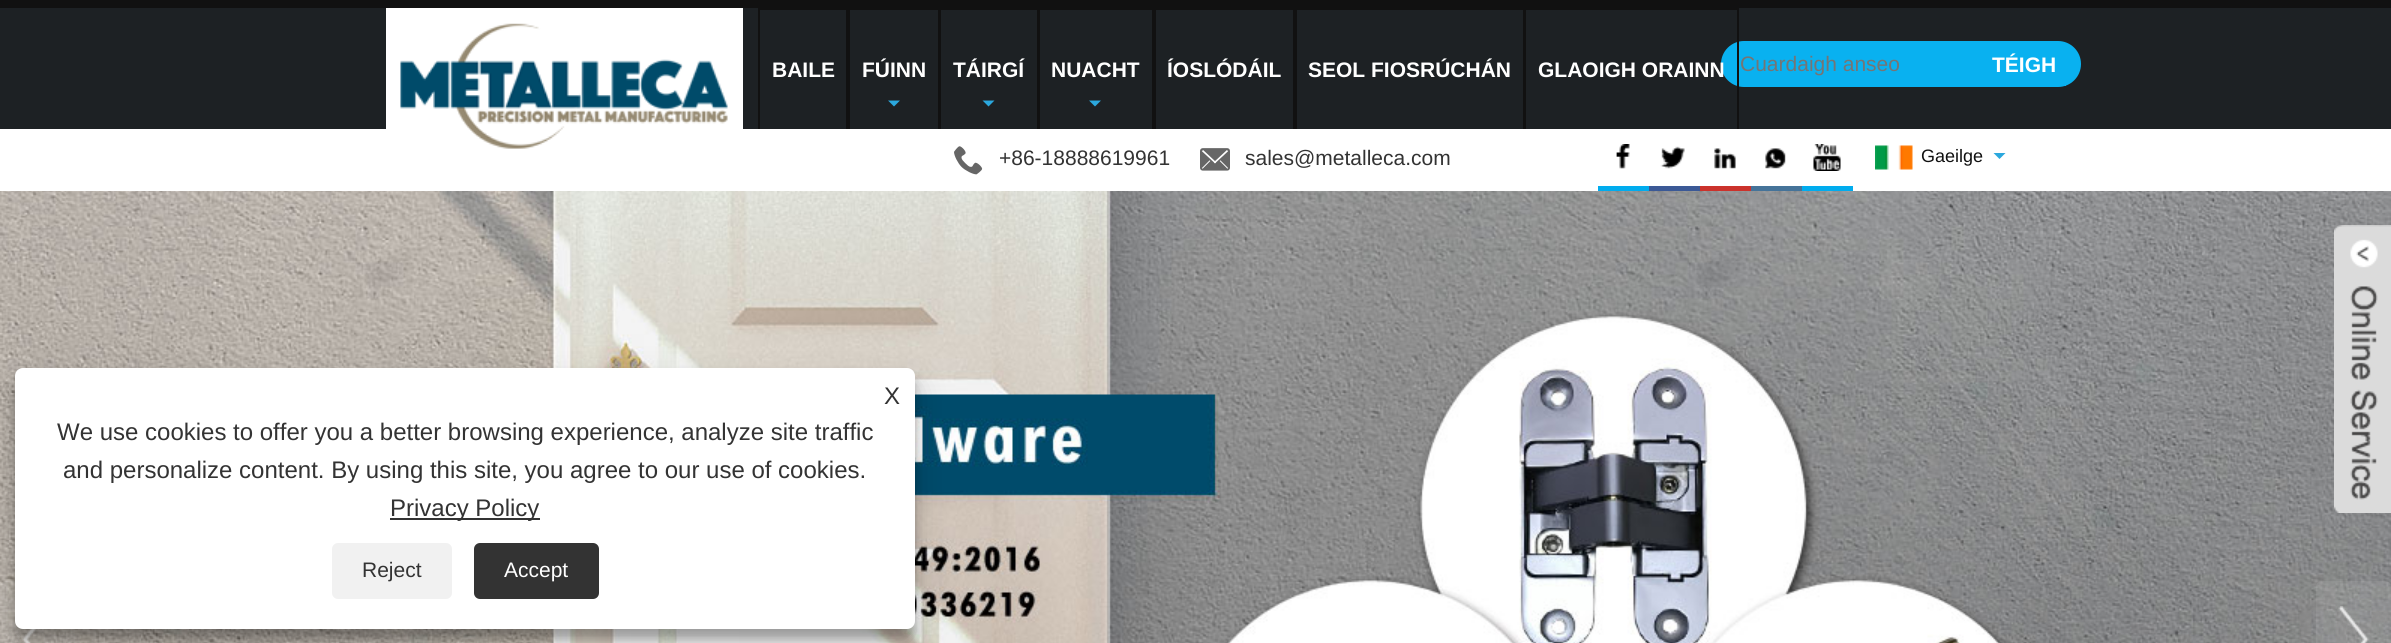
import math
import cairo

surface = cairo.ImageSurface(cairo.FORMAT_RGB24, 2391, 643)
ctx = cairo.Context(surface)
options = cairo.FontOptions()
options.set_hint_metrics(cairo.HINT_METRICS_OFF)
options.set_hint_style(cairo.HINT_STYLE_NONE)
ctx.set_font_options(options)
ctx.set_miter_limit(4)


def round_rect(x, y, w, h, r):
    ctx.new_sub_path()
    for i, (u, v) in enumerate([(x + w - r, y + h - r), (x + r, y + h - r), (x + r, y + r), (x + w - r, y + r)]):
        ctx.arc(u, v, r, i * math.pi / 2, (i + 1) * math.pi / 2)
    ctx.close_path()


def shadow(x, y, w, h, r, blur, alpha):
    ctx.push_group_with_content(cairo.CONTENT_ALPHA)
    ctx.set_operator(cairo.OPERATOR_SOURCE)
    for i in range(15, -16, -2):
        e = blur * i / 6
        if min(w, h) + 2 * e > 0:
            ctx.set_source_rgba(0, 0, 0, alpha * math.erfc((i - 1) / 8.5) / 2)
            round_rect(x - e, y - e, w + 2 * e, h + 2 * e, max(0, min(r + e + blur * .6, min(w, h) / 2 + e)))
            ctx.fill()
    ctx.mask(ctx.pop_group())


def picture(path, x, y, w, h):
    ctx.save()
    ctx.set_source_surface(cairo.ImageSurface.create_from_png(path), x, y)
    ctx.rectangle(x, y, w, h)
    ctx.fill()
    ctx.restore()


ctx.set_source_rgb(1, 1, 1)
ctx.paint()
ctx.set_source_rgb(0.114, 0.129, 0.141)
ctx.rectangle(0, 8, 2391, 121)
ctx.fill()
ctx.set_source_rgb(0.067, 0.067, 0.067)
ctx.rectangle(0, 0, 2391, 8)
ctx.fill()
ctx.set_source_rgb(1, 1, 1)
ctx.rectangle(386, 8, 357, 121)
ctx.fill()
picture("img1.png", 400, 23, 328, 126)
ctx.set_source_rgb(0.067, 0.067, 0.067)
ctx.rectangle(758, 8, 981, 2)
ctx.fill()
ctx.rectangle(846, 8, 4, 121)
ctx.fill()
ctx.rectangle(758, 8, 2, 121)
ctx.fill()
ctx.select_font_face("Liberation Sans", cairo.FONT_SLANT_NORMAL, cairo.FONT_WEIGHT_BOLD)
ctx.set_font_size(21)
ctx.set_source_rgb(1, 1, 1)
ctx.move_to(772, 77)
ctx.show_text("BAILE")
ctx.set_source_rgb(0.067, 0.067, 0.067)
ctx.rectangle(938, 8, 3, 121)
ctx.fill()
ctx.set_source_rgb(1, 1, 1)
ctx.move_to(862, 77)
ctx.show_text("FÚINN")
ctx.set_source_rgb(0.169, 0.659, 0.871)
ctx.new_path()
ctx.move_to(888, 100.5)
ctx.line_to(900, 100.5)
ctx.line_to(894, 106.5)
ctx.close_path()
ctx.fill()
ctx.set_source_rgb(0.067, 0.067, 0.067)
ctx.rectangle(1037, 8, 3, 121)
ctx.fill()
ctx.set_source_rgb(1, 1, 1)
ctx.move_to(953, 77)
ctx.show_text("TÁIRGÍ")
ctx.set_source_rgb(0.169, 0.659, 0.871)
ctx.new_path()
ctx.move_to(982.5, 100.5)
ctx.line_to(994.5, 100.5)
ctx.line_to(988.5, 106.5)
ctx.close_path()
ctx.fill()
ctx.set_source_rgb(0.067, 0.067, 0.067)
ctx.rectangle(1152, 8, 4, 121)
ctx.fill()
ctx.set_source_rgb(1, 1, 1)
ctx.move_to(1051, 77)
ctx.show_text("NUACHT")
ctx.set_source_rgb(0.169, 0.659, 0.871)
ctx.new_path()
ctx.move_to(1089, 100.5)
ctx.line_to(1101, 100.5)
ctx.line_to(1095, 106.5)
ctx.close_path()
ctx.fill()
ctx.set_source_rgb(0.067, 0.067, 0.067)
ctx.rectangle(1293, 8, 4, 121)
ctx.fill()
ctx.set_source_rgb(1, 1, 1)
ctx.move_to(1167, 77)
ctx.show_text("ÍOSLÓDÁIL")
ctx.set_source_rgb(0.067, 0.067, 0.067)
ctx.rectangle(1523, 8, 3, 121)
ctx.fill()
ctx.set_source_rgb(1, 1, 1)
ctx.move_to(1308, 77)
ctx.show_text("SEOL FIOSRÚCHÁN")
ctx.set_source_rgb(0.039, 0.694, 0.941)
round_rect(1721, 41, 360, 46, 23)
ctx.fill()
ctx.set_source_rgb(0.067, 0.067, 0.067)
ctx.rectangle(1737, 8, 2, 121)
ctx.fill()
ctx.set_source_rgb(1, 1, 1)
ctx.move_to(1538, 77)
ctx.show_text("GLAOIGH ORAINN")
ctx.select_font_face("Liberation Sans")
ctx.set_source_rgb(0.459, 0.459, 0.459)
ctx.move_to(1740, 71)
ctx.show_text("Cuardaigh anseo")
ctx.set_source_rgb(0.039, 0.694, 0.941)
ctx.rectangle(2065, 85, 1, 1)
ctx.fill()
ctx.select_font_face("Liberation Sans", cairo.FONT_SLANT_NORMAL, cairo.FONT_WEIGHT_BOLD)
ctx.set_source_rgb(1, 1, 1)
ctx.move_to(1992, 72)
ctx.show_text("TÉIGH")
picture("img2.png", 954, 146, 29, 29)
ctx.select_font_face("Liberation Sans")
ctx.set_source_rgb(0.2, 0.2, 0.2)
ctx.move_to(999, 165)
ctx.show_text("+86-18888619961")
picture("img3.png", 1200, 148, 30, 23)
ctx.move_to(1245, 165)
ctx.show_text("sales@metalleca.com")
ctx.set_source_rgb(0, 0.675, 0.933)
ctx.rectangle(1598, 186, 51, 5)
ctx.fill()
picture("img4.png", 1616, 144, 14, 25)
ctx.set_source_rgb(0.231, 0.349, 0.588)
ctx.rectangle(1649, 186, 51, 5)
ctx.fill()
picture("img5.png", 1660, 146, 25, 23)
ctx.set_source_rgb(0.796, 0.196, 0.173)
ctx.rectangle(1700, 186, 51, 5)
ctx.fill()
picture("img6.png", 1714, 148, 22, 21)
ctx.set_source_rgb(0.271, 0.451, 0.6)
ctx.rectangle(1751, 186, 51, 5)
ctx.fill()
picture("img7.png", 1765, 148, 21, 21)
ctx.set_source_rgb(0, 0.675, 0.933)
ctx.rectangle(1802, 186, 51, 5)
ctx.fill()
picture("img8.png", 1813, 144, 28, 27)
picture("img9.png", 1875, 145, 38, 25)
ctx.set_font_size(18)
ctx.set_source_rgb(0.067, 0.067, 0.067)
ctx.move_to(1921, 162)
ctx.show_text("Gaeilge")
ctx.set_source_rgb(0.169, 0.659, 0.871)
ctx.new_path()
ctx.move_to(1993.5, 153)
ctx.line_to(2005.5, 153)
ctx.line_to(1999.5, 159)
ctx.close_path()
ctx.fill()
picture("img10.png", 0, 191, 2391, 452)
ctx.set_source_rgba(1, 1, 1, 0.08)
round_rect(0, 581, 75, 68, 6)
ctx.fill()
picture("img11.png", 22, 629, 15, 14)
round_rect(2316, 581, 75, 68, 6)
ctx.fill()
picture("img12.png", 2338, 606, 31, 37)
ctx.set_source_rgb(0, 0, 0)
shadow(15, 377, 900, 261, 8, 4.5, 0.23)
shadow(15, 383, 900, 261, 8, 15, 0.19)
ctx.set_source_rgb(1, 1, 1)
round_rect(15, 368, 900, 261, 8)
ctx.fill()
ctx.set_font_size(24)
ctx.set_source_rgb(0.2, 0.2, 0.2)
ctx.move_to(884, 404)
ctx.show_text("X")
ctx.move_to(57, 440)
ctx.show_text("We use cookies to offer you a better browsing experience, analyze site traffic")
ctx.move_to(63, 478)
ctx.show_text("and personalize content. By using this site, you agree to our use of cookies.")
ctx.rectangle(390, 518, 150, 2)
ctx.fill()
ctx.move_to(390, 516)
ctx.show_text("Privacy Policy")
ctx.set_source_rgb(0.945, 0.945, 0.945)
round_rect(332, 543, 120, 56, 6)
ctx.fill()
ctx.set_font_size(21)
ctx.set_source_rgb(0.2, 0.2, 0.2)
ctx.move_to(362, 577)
ctx.show_text("Reject")
round_rect(474, 543, 125, 56, 6)
ctx.fill()
ctx.set_source_rgb(1, 1, 1)
ctx.move_to(504, 577)
ctx.show_text("Accept")
picture("img13.png", 2334, 225, 57, 288)
surface.write_to_png("page.png")
